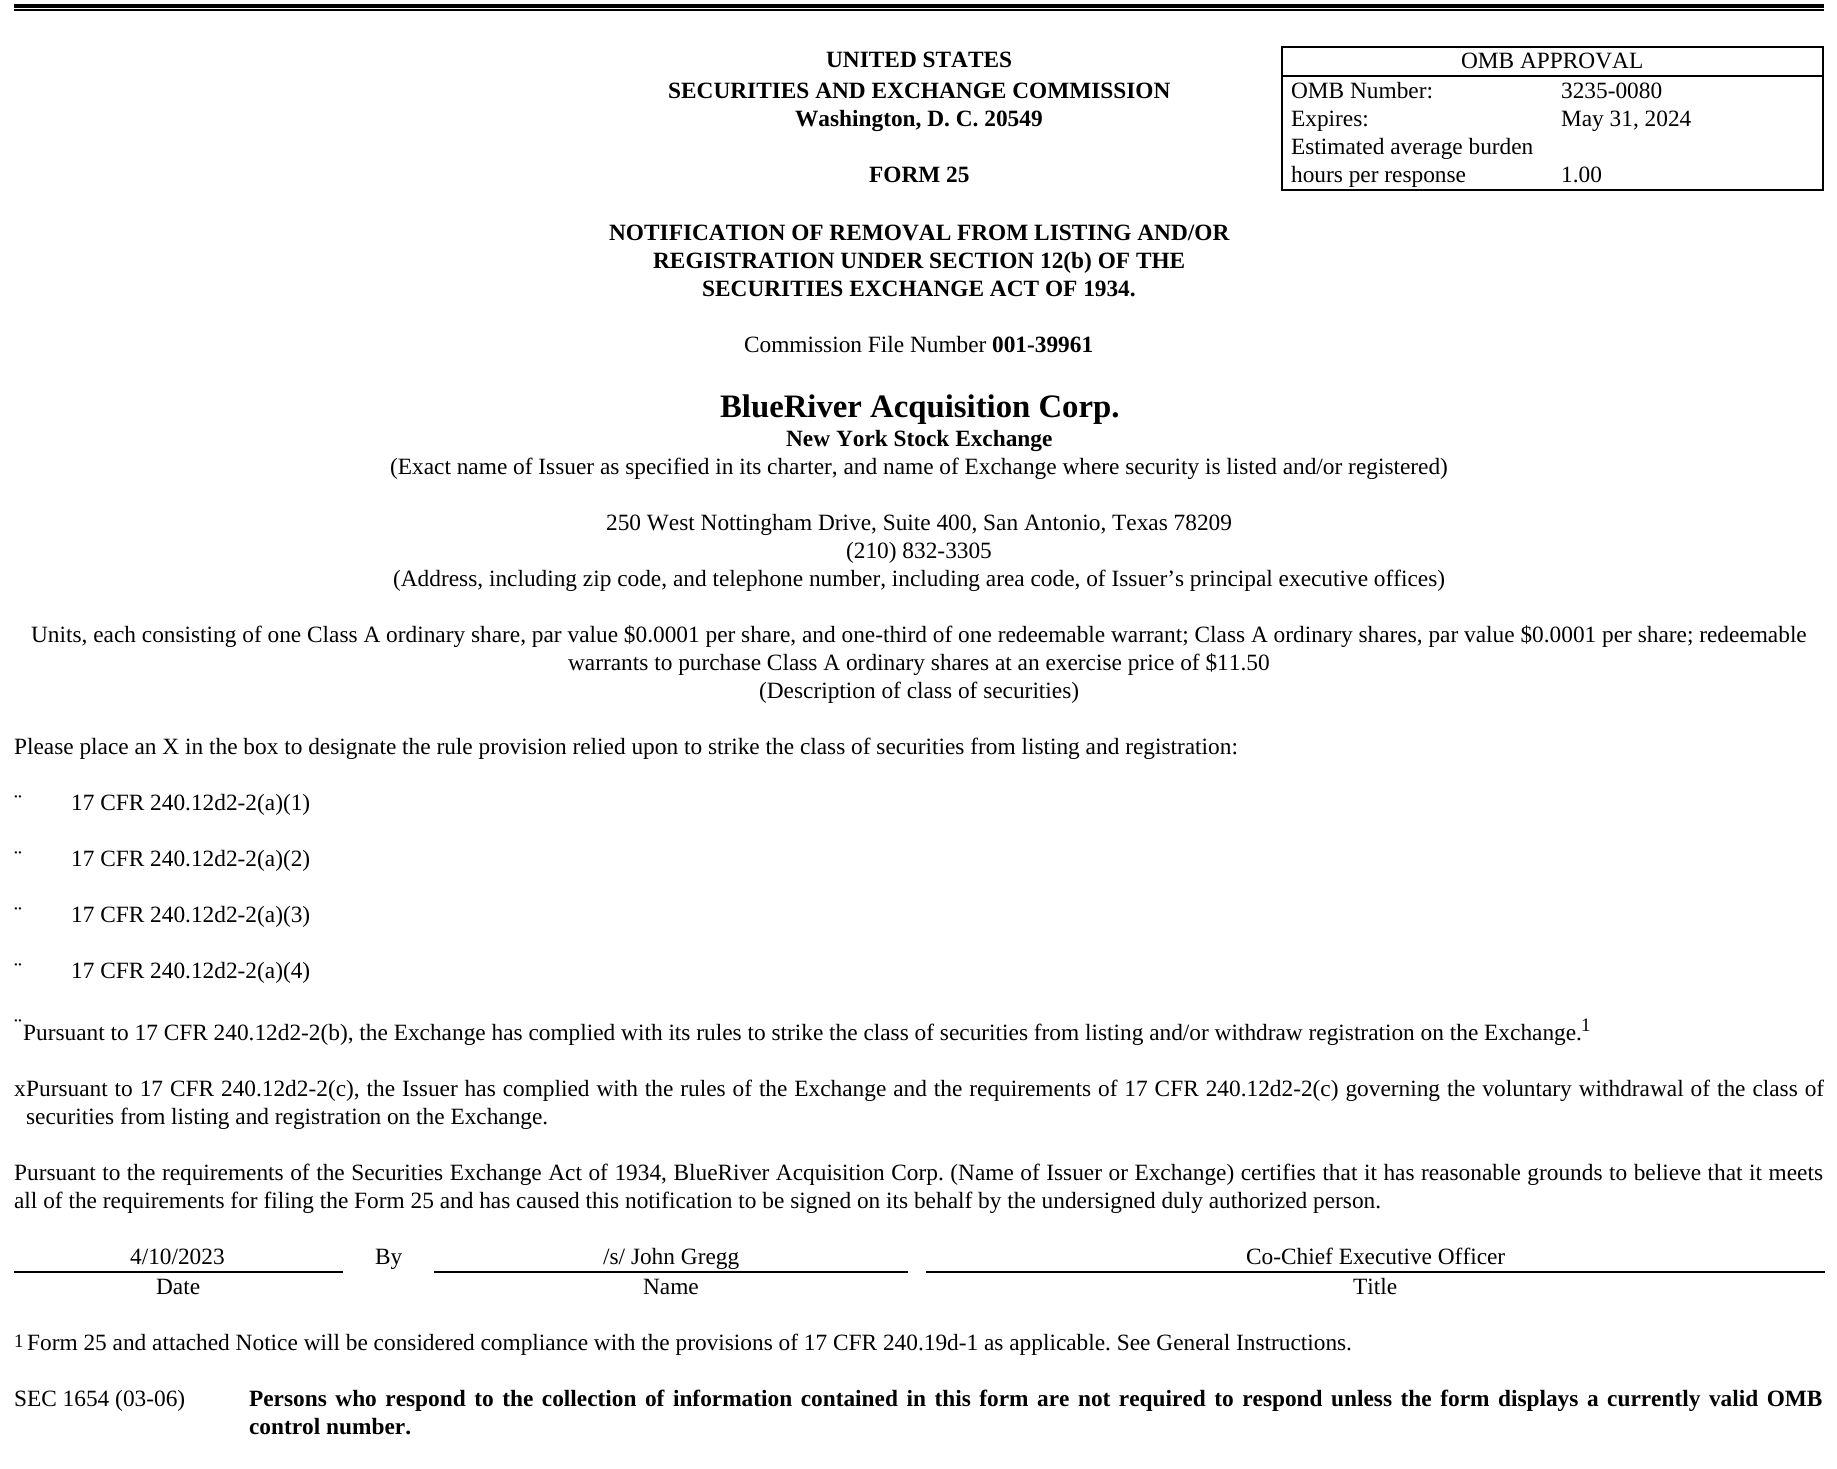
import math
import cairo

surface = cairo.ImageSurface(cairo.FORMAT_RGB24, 1837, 1469)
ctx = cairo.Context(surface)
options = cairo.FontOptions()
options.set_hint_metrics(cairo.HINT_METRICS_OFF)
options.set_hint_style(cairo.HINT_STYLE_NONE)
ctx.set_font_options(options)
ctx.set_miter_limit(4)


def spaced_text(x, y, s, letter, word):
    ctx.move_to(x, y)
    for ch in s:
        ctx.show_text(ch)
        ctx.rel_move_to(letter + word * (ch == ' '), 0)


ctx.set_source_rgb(1, 1, 1)
ctx.paint()
ctx.set_source_rgb(0, 0, 0)
ctx.rectangle(14, 4, 1810, 4)
ctx.fill()
ctx.rectangle(14, 9, 1810, 2)
ctx.fill()
ctx.select_font_face("Liberation Serif", cairo.FONT_SLANT_NORMAL, cairo.FONT_WEIGHT_BOLD)
ctx.set_font_size(23.33)
ctx.move_to(826, 67)
ctx.show_text("UNITED STATES")
ctx.rectangle(1282, 47, 541, 29)
ctx.stroke()
ctx.select_font_face("Liberation Serif")
ctx.move_to(1461, 68)
ctx.show_text("OMB APPROVAL")
ctx.select_font_face("Liberation Serif", cairo.FONT_SLANT_NORMAL, cairo.FONT_WEIGHT_BOLD)
ctx.move_to(668, 98)
ctx.show_text("SECURITIES AND EXCHANGE COMMISSION")
ctx.rectangle(1281, 77, 2, 84)
ctx.fill()
ctx.select_font_face("Liberation Serif")
ctx.move_to(1291, 98)
ctx.show_text("OMB Number:")
ctx.rectangle(1822, 77, 2, 114)
ctx.fill()
ctx.move_to(1561, 98)
ctx.show_text("3235-0080")
ctx.select_font_face("Liberation Serif", cairo.FONT_SLANT_NORMAL, cairo.FONT_WEIGHT_BOLD)
ctx.move_to(795, 126)
ctx.show_text("Washington, D. C. 20549")
ctx.select_font_face("Liberation Serif")
ctx.move_to(1291, 126)
ctx.show_text("Expires:")
ctx.move_to(1561, 126)
ctx.show_text("May 31, 2024")
ctx.move_to(1291, 154)
ctx.show_text("Estimated average burden")
ctx.select_font_face("Liberation Serif", cairo.FONT_SLANT_NORMAL, cairo.FONT_WEIGHT_BOLD)
ctx.move_to(869, 182)
ctx.show_text("FORM 25")
ctx.rectangle(1281, 189, 543, 2)
ctx.fill()
ctx.rectangle(1281, 161, 2, 30)
ctx.fill()
ctx.select_font_face("Liberation Serif")
ctx.move_to(1291, 182)
ctx.show_text("hours per response")
ctx.move_to(1561, 182)
ctx.show_text("1.00")
ctx.select_font_face("Liberation Serif", cairo.FONT_SLANT_NORMAL, cairo.FONT_WEIGHT_BOLD)
ctx.move_to(609, 240)
ctx.show_text("NOTIFICATION OF REMOVAL FROM LISTING AND/OR")
ctx.move_to(653, 268)
ctx.show_text("REGISTRATION UNDER SECTION 12(b) OF THE")
ctx.move_to(702, 296)
ctx.show_text("SECURITIES EXCHANGE ACT OF 1934.")
ctx.select_font_face("Liberation Serif")
ctx.move_to(744, 352)
ctx.show_text("Commission File Number")
ctx.select_font_face("Liberation Serif", cairo.FONT_SLANT_NORMAL, cairo.FONT_WEIGHT_BOLD)
ctx.move_to(992, 352)
ctx.show_text("001-39961")
ctx.set_font_size(32.75)
ctx.move_to(720, 417)
ctx.show_text("BlueRiver Acquisition Corp.")
ctx.set_font_size(23.33)
ctx.move_to(786, 446)
ctx.show_text("New York Stock Exchange")
ctx.select_font_face("Liberation Serif")
ctx.move_to(390, 474)
ctx.show_text("(Exact name of Issuer as specified in its charter, and name of Exchange where security is listed and/or registered)")
ctx.move_to(606, 530)
ctx.show_text("250 West Nottingham Drive, Suite 400, San Antonio, Texas 78209")
ctx.move_to(846, 558)
ctx.show_text("(210) 832-3305")
ctx.move_to(393, 586)
ctx.show_text("(Address, including zip code, and telephone number, including area code, of Issuer’s principal executive offices)")
ctx.move_to(31, 642)
ctx.show_text("Units, each consisting of one Class A ordinary share, par value $0.0001 per share, and one-third of one redeemable warrant; Class A ordinary shares, par value $0.0001 per share; redeemable")
ctx.move_to(568, 670)
ctx.show_text("warrants to purchase Class A ordinary shares at an exercise price of $11.50")
ctx.move_to(759, 698)
ctx.show_text("(Description of class of securities)")
ctx.move_to(14, 754)
ctx.show_text("Please place an X in the box to designate the rule provision relied upon to strike the class of securities from listing and registration:")
ctx.move_to(14, 810)
ctx.show_text("¨")
ctx.move_to(71, 810)
ctx.show_text("17 CFR 240.12d2-2(a)(1)")
ctx.move_to(14, 866)
ctx.show_text("¨")
ctx.move_to(71, 866)
ctx.show_text("17 CFR 240.12d2-2(a)(2)")
ctx.move_to(14, 922)
ctx.show_text("¨")
ctx.move_to(71, 922)
ctx.show_text("17 CFR 240.12d2-2(a)(3)")
ctx.move_to(14, 978)
ctx.show_text("¨")
ctx.move_to(71, 978)
ctx.show_text("17 CFR 240.12d2-2(a)(4)")
ctx.move_to(14, 1034)
ctx.show_text("¨")
ctx.move_to(23, 1040)
ctx.show_text("Pursuant to 17 CFR 240.12d2-2(b), the Exchange has complied with its rules to strike the class of securities from listing and/or withdraw registration on the Exchange.")
ctx.set_font_size(19)
ctx.move_to(1581, 1031)
ctx.show_text("1")
ctx.set_font_size(23.33)
ctx.move_to(14, 1096)
ctx.show_text("x")
spaced_text(26, 1096, "Pursuant to 17 CFR 240.12d2-2(c), the Issuer has complied with the rules of the Exchange and the requirements of 17 CFR 240.12d2-2(c) governing the voluntary withdrawal of the class of", 0, 1.1)
ctx.move_to(26, 1124)
ctx.show_text("securities from listing and registration on the Exchange.")
spaced_text(14, 1180, "Pursuant to the requirements of the Securities Exchange Act of 1934, BlueRiver Acquisition Corp. (Name of Issuer or Exchange) certifies that it has reasonable grounds to believe that it meets", 0, 0.7)
ctx.move_to(14, 1208)
ctx.show_text("all of the requirements for filing the Form 25 and has caused this notification to be signed on its behalf by the undersigned duly authorized person.")
ctx.rectangle(14, 1271, 329, 2)
ctx.fill()
ctx.move_to(130, 1264)
ctx.show_text("4/10/2023")
ctx.move_to(375, 1264)
ctx.show_text("By")
ctx.rectangle(434, 1271, 474, 2)
ctx.fill()
ctx.move_to(603, 1264)
ctx.show_text("/s/ John Gregg")
ctx.rectangle(926, 1271, 899, 2)
ctx.fill()
ctx.move_to(1246, 1264)
ctx.show_text("Co-Chief Executive Officer")
ctx.move_to(156, 1294)
ctx.show_text("Date")
ctx.move_to(643, 1294)
ctx.show_text("Name")
ctx.move_to(1353, 1294)
ctx.show_text("Title")
ctx.set_font_size(19)
ctx.move_to(14, 1347)
ctx.show_text("1")
ctx.set_font_size(23.33)
ctx.move_to(27, 1350)
ctx.show_text("Form 25 and attached Notice will be considered compliance with the provisions of 17 CFR 240.19d-1 as applicable. See General Instructions.")
ctx.move_to(14, 1406)
ctx.show_text("SEC 1654 (03-06)")
ctx.select_font_face("Liberation Serif", cairo.FONT_SLANT_NORMAL, cairo.FONT_WEIGHT_BOLD)
spaced_text(249, 1406, "Persons who respond to the collection of information contained in this form are not required to respond unless the form displays a currently valid OMB", 0, 2.7)
ctx.move_to(249, 1434)
ctx.show_text("control number.")
surface.write_to_png("page.png")
